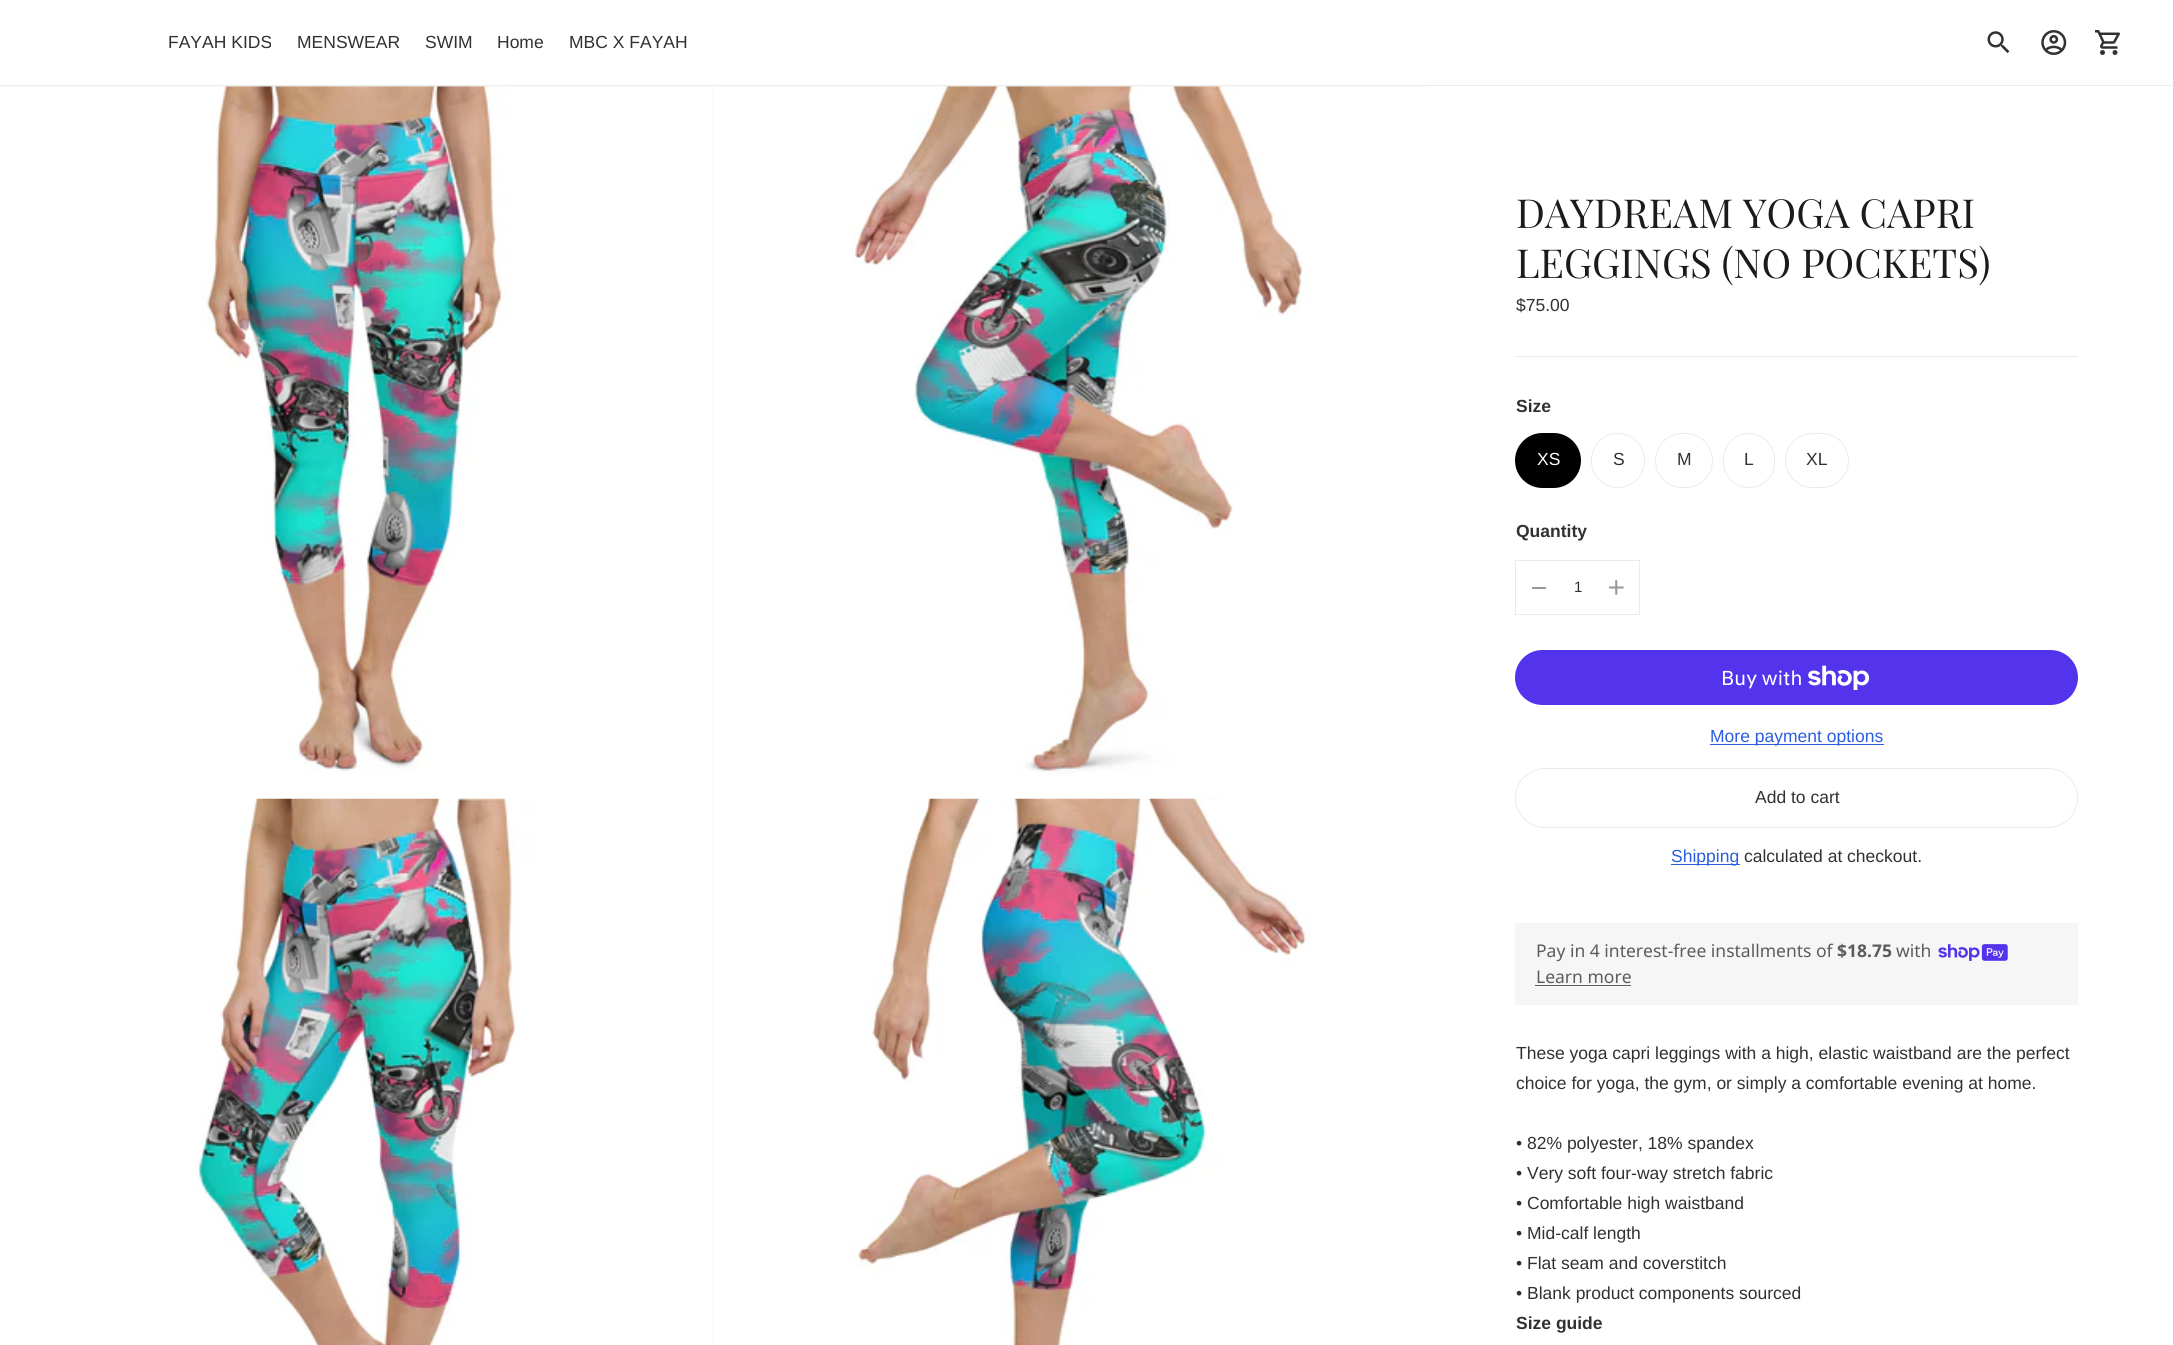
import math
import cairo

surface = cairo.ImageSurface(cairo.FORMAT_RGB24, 2173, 1345)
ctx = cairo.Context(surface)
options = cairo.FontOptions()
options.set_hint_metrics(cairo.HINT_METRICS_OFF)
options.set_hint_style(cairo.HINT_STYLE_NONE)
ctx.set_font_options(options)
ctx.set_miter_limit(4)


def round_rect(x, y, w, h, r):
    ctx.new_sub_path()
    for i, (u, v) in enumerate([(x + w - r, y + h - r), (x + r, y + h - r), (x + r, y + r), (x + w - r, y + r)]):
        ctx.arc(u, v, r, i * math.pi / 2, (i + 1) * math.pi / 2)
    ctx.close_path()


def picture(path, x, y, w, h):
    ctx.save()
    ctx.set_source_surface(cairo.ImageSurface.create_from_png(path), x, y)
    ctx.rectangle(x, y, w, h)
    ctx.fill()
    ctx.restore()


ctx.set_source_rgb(1, 1, 1)
ctx.paint()
ctx.set_source_rgb(0.918, 0.918, 0.918)
ctx.rectangle(0, 85, 2173, 1)
ctx.fill()
ctx.select_font_face("Liberation Sans")
ctx.set_font_size(17.5)
ctx.set_source_rgb(0.192, 0.192, 0.192)
ctx.move_to(168, 48)
ctx.show_text("FAYAH KIDS")
ctx.move_to(297, 48)
ctx.show_text("MENSWEAR")
ctx.move_to(425, 48)
ctx.show_text("SWIM")
ctx.move_to(497, 48)
ctx.show_text("Home")
ctx.move_to(569, 48)
ctx.show_text("MBC X FAYAH")
picture("img1.png", 1987, 31, 23, 22)
picture("img2.png", 2041, 30, 26, 25)
picture("img3.png", 2095, 30, 25, 25)
ctx.set_source_rgb(0.961, 0.961, 0.961)
ctx.rectangle(0, 86, 1426, 713)
ctx.fill()
picture("img4.png", 0, 86, 713, 713)
picture("img5.png", 713, 86, 713, 713)
ctx.rectangle(712, 799, 1, 546)
ctx.fill()
picture("img6.png", 0, 798, 713, 547)
picture("img7.png", 713, 798, 713, 547)
ctx.select_font_face("Playfair Display")
ctx.set_font_size(40)
ctx.set_source_rgb(0.106, 0.106, 0.106)
ctx.move_to(1516, 228)
ctx.show_text("DAYDREAM YOGA CAPRI")
ctx.move_to(1516, 278)
ctx.show_text("LEGGINGS (NO POCKETS)")
ctx.select_font_face("Liberation Sans")
ctx.set_font_size(17.5)
ctx.set_source_rgb(0.192, 0.192, 0.192)
ctx.move_to(1516, 311)
ctx.show_text("$75.00")
ctx.set_source_rgb(0.918, 0.918, 0.918)
ctx.rectangle(1515, 356, 563, 1)
ctx.fill()
ctx.select_font_face("Liberation Sans", cairo.FONT_SLANT_NORMAL, cairo.FONT_WEIGHT_BOLD)
ctx.set_source_rgb(0.192, 0.192, 0.192)
ctx.move_to(1516, 412)
ctx.show_text("Size")
ctx.set_source_rgb(0, 0, 0)
round_rect(1515, 433, 66, 55, 27.5)
ctx.fill()
ctx.select_font_face("Liberation Sans")
ctx.set_source_rgb(1, 1, 1)
ctx.move_to(1537, 465)
ctx.show_text("XS")
round_rect(1591.5, 433.5, 53, 54, 26.5)
ctx.set_source_rgb(0.918, 0.918, 0.918)
ctx.set_line_width(1)
ctx.stroke()
ctx.set_source_rgb(0.192, 0.192, 0.192)
ctx.move_to(1613, 465)
ctx.show_text("S")
round_rect(1655.5, 433.5, 57, 54, 27)
ctx.set_source_rgb(0.918, 0.918, 0.918)
ctx.stroke()
ctx.set_source_rgb(0.192, 0.192, 0.192)
ctx.move_to(1677, 465)
ctx.show_text("M")
round_rect(1723.5, 433.5, 51, 54, 25.5)
ctx.set_source_rgb(0.918, 0.918, 0.918)
ctx.stroke()
ctx.set_source_rgb(0.192, 0.192, 0.192)
ctx.move_to(1744, 465)
ctx.show_text("L")
round_rect(1785.5, 433.5, 63, 54, 27)
ctx.set_source_rgb(0.918, 0.918, 0.918)
ctx.stroke()
ctx.set_source_rgb(0.192, 0.192, 0.192)
ctx.move_to(1806, 465)
ctx.show_text("XL")
ctx.select_font_face("Liberation Sans", cairo.FONT_SLANT_NORMAL, cairo.FONT_WEIGHT_BOLD)
ctx.move_to(1516, 537)
ctx.show_text("Quantity")
ctx.rectangle(1515.5, 560.5, 124, 54)
ctx.set_source_rgb(0.918, 0.918, 0.918)
ctx.stroke()
ctx.set_source_rgb(0.596, 0.596, 0.596)
ctx.rectangle(1532, 587, 14, 2)
ctx.fill()
ctx.select_font_face("Liberation Sans")
ctx.set_font_size(15)
ctx.set_source_rgb(0.192, 0.192, 0.192)
ctx.move_to(1574, 592)
ctx.show_text("1")
picture("img8.png", 1608, 580, 16, 15)
ctx.set_source_rgb(0.329, 0.2, 0.922)
round_rect(1515, 650, 563, 55, 27.5)
ctx.fill()
ctx.select_font_face("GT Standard")
ctx.set_font_size(20)
ctx.set_source_rgb(1, 1, 1)
ctx.move_to(1721, 685)
ctx.show_text("Buy with")
picture("img9.png", 1808, 665, 62, 25)
ctx.set_source_rgb(0.165, 0.365, 0.875)
ctx.rectangle(1710, 744, 174, 1)
ctx.fill()
ctx.select_font_face("Liberation Sans")
ctx.set_font_size(17.5)
ctx.move_to(1710, 742)
ctx.show_text("More payment options")
round_rect(1515.5, 768.5, 562, 59, 29.5)
ctx.set_source_rgb(0.918, 0.918, 0.918)
ctx.stroke()
ctx.set_source_rgb(0.192, 0.192, 0.192)
ctx.move_to(1755, 803)
ctx.show_text("Add to cart")
ctx.set_source_rgb(0.165, 0.365, 0.875)
ctx.rectangle(1671, 864, 69, 1)
ctx.fill()
ctx.move_to(1671, 862)
ctx.show_text("Shipping")
ctx.set_source_rgb(0.192, 0.192, 0.192)
ctx.move_to(1744, 862)
ctx.show_text("calculated at checkout.")
ctx.set_source_rgb(0.961, 0.961, 0.961)
ctx.rectangle(1515, 923, 563, 82)
ctx.fill()
ctx.select_font_face("Noto Sans")
ctx.set_source_rgb(0.361, 0.361, 0.361)
ctx.move_to(1536, 957)
ctx.show_text("Pay in 4 interest-free installments of")
ctx.select_font_face("Noto Sans", cairo.FONT_SLANT_NORMAL, cairo.FONT_WEIGHT_BOLD)
ctx.move_to(1837, 957)
ctx.show_text("$18.75")
ctx.select_font_face("Noto Sans")
ctx.move_to(1896, 957)
ctx.show_text("with")
picture("img10.png", 1938, 944, 70, 17)
ctx.move_to(1536, 983)
ctx.show_text("Learn more")
ctx.rectangle(1535, 985, 96, 1)
ctx.fill()
ctx.select_font_face("Liberation Sans")
ctx.set_source_rgb(0.192, 0.192, 0.192)
ctx.move_to(1516, 1059)
ctx.show_text("These yoga capri leggings with a high, elastic waistband are the perfect")
ctx.move_to(1516, 1089)
ctx.show_text("choice for yoga, the gym, or simply a comfortable evening at home.")
ctx.move_to(1516, 1149)
ctx.show_text("• 82% polyester, 18% spandex")
ctx.move_to(1516, 1179)
ctx.show_text("• Very soft four-way stretch fabric")
ctx.move_to(1516, 1209)
ctx.show_text("• Comfortable high waistband")
ctx.move_to(1516, 1239)
ctx.show_text("• Mid-calf length")
ctx.move_to(1516, 1269)
ctx.show_text("• Flat seam and coverstitch")
ctx.move_to(1516, 1299)
ctx.show_text("• Blank product components sourced")
ctx.select_font_face("Liberation Sans", cairo.FONT_SLANT_NORMAL, cairo.FONT_WEIGHT_BOLD)
ctx.move_to(1516, 1329)
ctx.show_text("Size guide")
surface.write_to_png("page.png")
